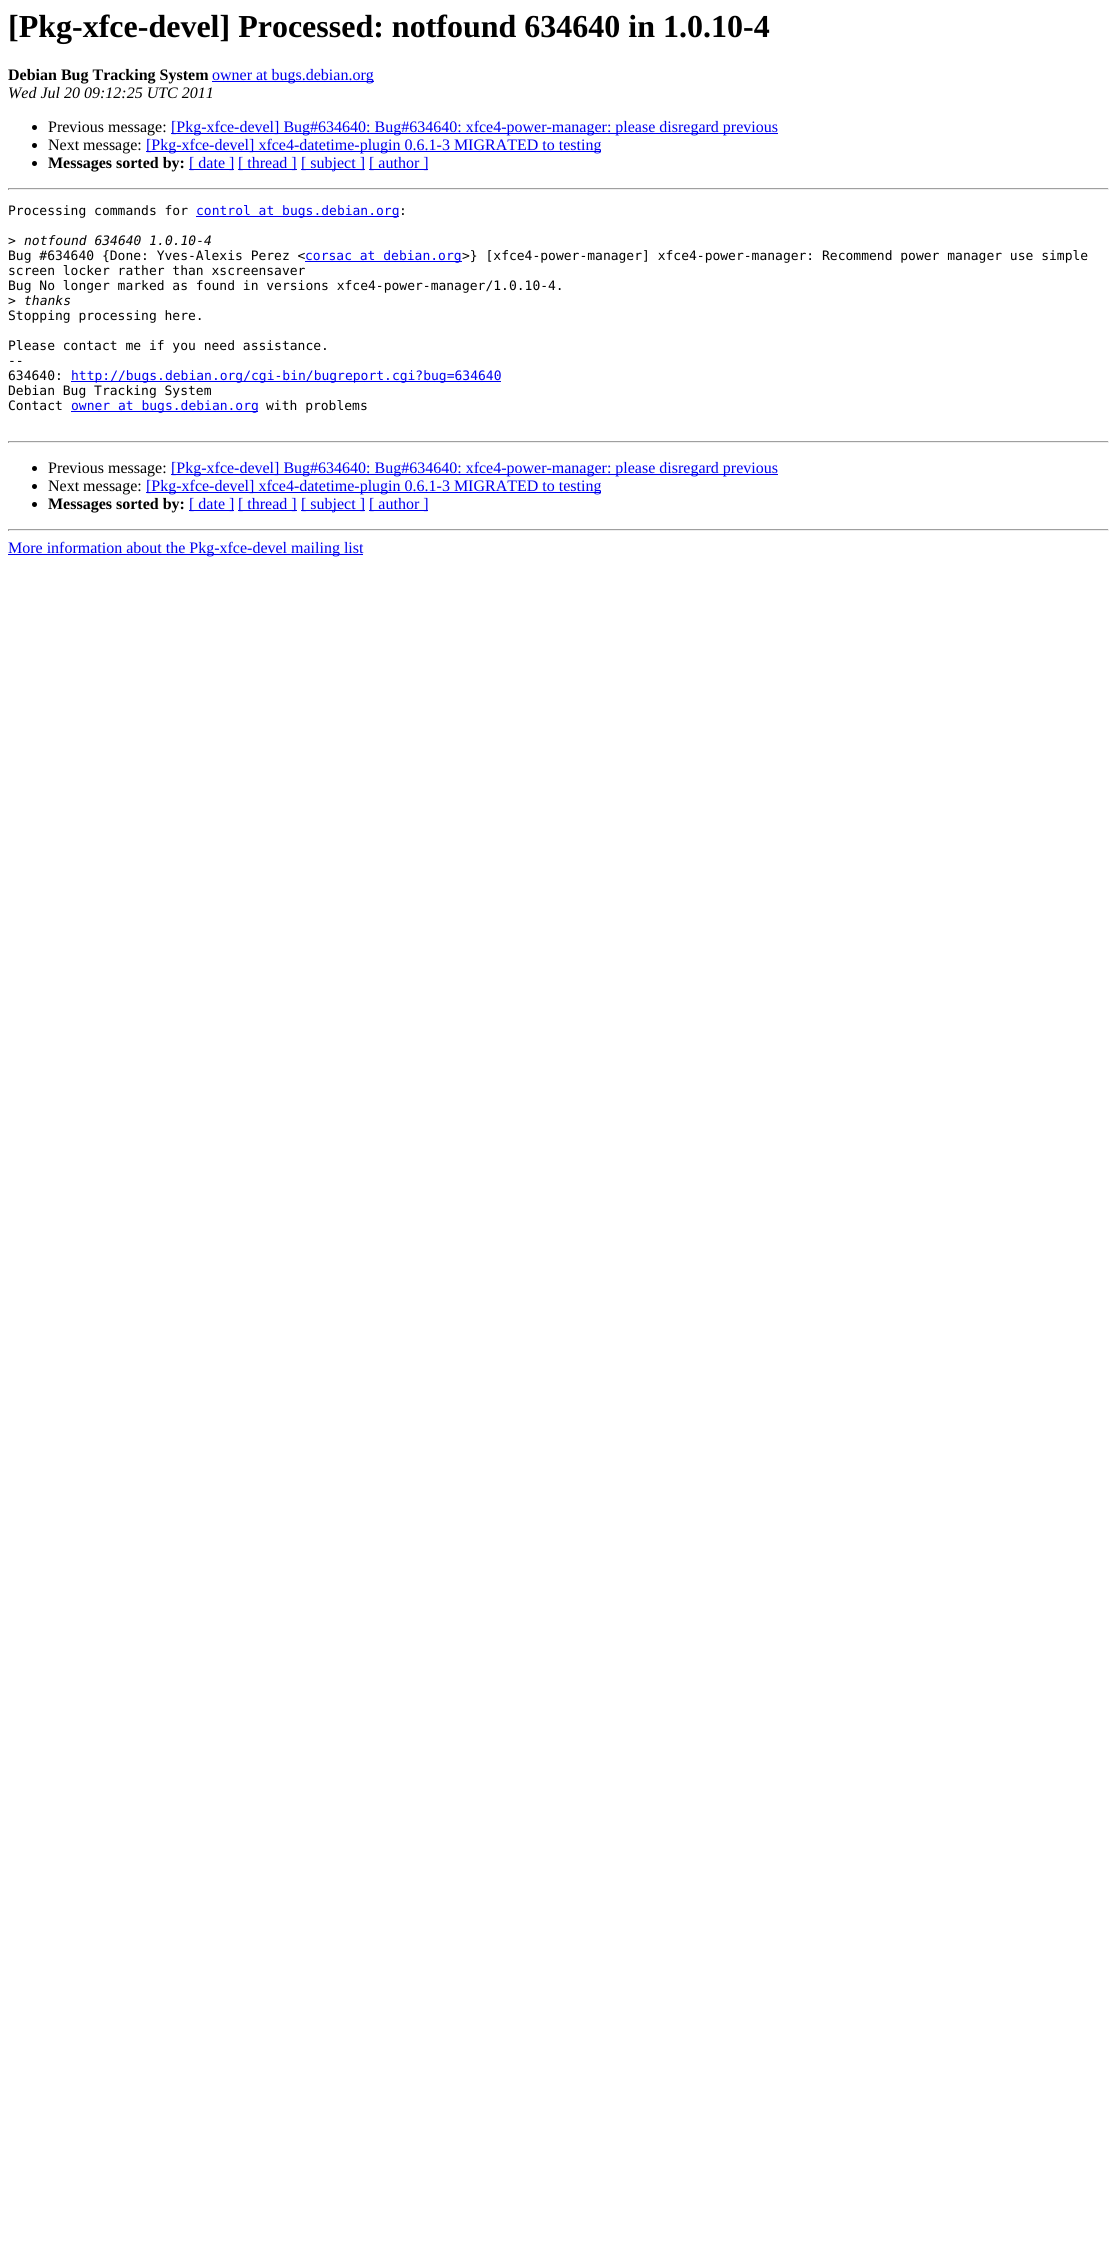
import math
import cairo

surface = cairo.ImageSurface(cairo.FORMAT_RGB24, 1117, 2254)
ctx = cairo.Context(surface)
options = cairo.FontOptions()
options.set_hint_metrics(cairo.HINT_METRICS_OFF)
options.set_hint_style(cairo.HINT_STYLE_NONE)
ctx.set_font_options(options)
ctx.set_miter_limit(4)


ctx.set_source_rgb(1, 1, 1)
ctx.paint()
ctx.select_font_face("Liberation Serif", cairo.FONT_SLANT_NORMAL, cairo.FONT_WEIGHT_BOLD)
ctx.set_font_size(32)
ctx.set_source_rgb(0, 0, 0)
ctx.move_to(8, 37)
ctx.show_text("[Pkg-xfce-devel] Processed: notfound 634640 in 1.0.10-4")
ctx.set_font_size(16)
ctx.move_to(8, 80)
ctx.show_text("Debian Bug Tracking System")
ctx.set_source_rgb(0, 0, 0.933)
ctx.rectangle(212, 81, 162, 1)
ctx.fill()
ctx.select_font_face("Liberation Serif")
ctx.move_to(212, 80)
ctx.show_text("owner at bugs.debian.org")
ctx.select_font_face("Liberation Serif", cairo.FONT_SLANT_ITALIC)
ctx.set_source_rgb(0, 0, 0)
ctx.move_to(8, 98)
ctx.show_text("Wed Jul 20 09:12:25 UTC 2011")
ctx.new_path()
ctx.arc(34.5, 127.5, 2.5, 0, 2 * math.pi)
ctx.fill()
ctx.select_font_face("Liberation Serif")
ctx.move_to(48, 132)
ctx.show_text("Previous message:")
ctx.set_source_rgb(0, 0, 0.933)
ctx.rectangle(171, 133, 607, 1)
ctx.fill()
ctx.move_to(171, 132)
ctx.show_text("[Pkg-xfce-devel] Bug#634640: Bug#634640: xfce4-power-manager: please disregard previous")
ctx.set_source_rgb(0, 0, 0)
ctx.new_path()
ctx.arc(34.5, 145.5, 2.5, 0, 2 * math.pi)
ctx.fill()
ctx.move_to(48, 150)
ctx.show_text("Next message:")
ctx.set_source_rgb(0, 0, 0.933)
ctx.rectangle(146, 151, 455, 1)
ctx.fill()
ctx.move_to(146, 150)
ctx.show_text("[Pkg-xfce-devel] xfce4-datetime-plugin 0.6.1-3 MIGRATED to testing")
ctx.set_source_rgb(0, 0, 0)
ctx.new_path()
ctx.arc(34.5, 163.5, 2.5, 0, 2 * math.pi)
ctx.fill()
ctx.select_font_face("Liberation Serif", cairo.FONT_SLANT_NORMAL, cairo.FONT_WEIGHT_BOLD)
ctx.move_to(48, 168)
ctx.show_text("Messages sorted by:")
ctx.set_source_rgb(0, 0, 0.933)
ctx.rectangle(189, 169, 45, 1)
ctx.fill()
ctx.select_font_face("Liberation Serif")
ctx.move_to(189, 168)
ctx.show_text("[ date ]")
ctx.rectangle(238, 169, 59, 1)
ctx.fill()
ctx.move_to(238, 168)
ctx.show_text("[ thread ]")
ctx.rectangle(301, 169, 64, 1)
ctx.fill()
ctx.move_to(301, 168)
ctx.show_text("[ subject ]")
ctx.rectangle(369, 169, 59, 1)
ctx.fill()
ctx.move_to(369, 168)
ctx.show_text("[ author ]")
ctx.set_source_rgb(0.624, 0.624, 0.624)
ctx.rectangle(8, 188, 1101, 1)
ctx.fill()
ctx.set_source_rgb(0.933, 0.933, 0.933)
ctx.rectangle(1108, 188, 1, 2)
ctx.fill()
ctx.rectangle(8, 189, 1101, 1)
ctx.fill()
ctx.set_source_rgb(0.624, 0.624, 0.624)
ctx.rectangle(8, 188, 1, 2)
ctx.fill()
ctx.select_font_face("DejaVu Sans Mono")
ctx.set_font_size(13)
ctx.set_source_rgb(0, 0, 0)
ctx.move_to(8, 215)
ctx.show_text("Processing commands for")
ctx.set_source_rgb(0, 0, 0.933)
ctx.rectangle(196, 216, 203, 1)
ctx.fill()
ctx.move_to(196, 215)
ctx.show_text("control at bugs.debian.org")
ctx.set_source_rgb(0, 0, 0)
ctx.move_to(399, 215)
ctx.show_text(":")
ctx.move_to(8, 245)
ctx.show_text(">")
ctx.select_font_face("DejaVu Sans Mono", cairo.FONT_SLANT_ITALIC)
ctx.move_to(24, 245)
ctx.show_text("notfound 634640 1.0.10-4")
ctx.select_font_face("DejaVu Sans Mono")
ctx.move_to(8, 260)
ctx.show_text("Bug #634640 {Done: Yves-Alexis Perez <")
ctx.set_source_rgb(0, 0, 0.933)
ctx.rectangle(305, 261, 157, 1)
ctx.fill()
ctx.move_to(305, 260)
ctx.show_text("corsac at debian.org")
ctx.set_source_rgb(0, 0, 0)
ctx.move_to(462, 260)
ctx.show_text(">} [xfce4-power-manager] xfce4-power-manager: Recommend power manager use simple")
ctx.move_to(8, 275)
ctx.show_text("screen locker rather than xscreensaver")
ctx.move_to(8, 290)
ctx.show_text("Bug No longer marked as found in versions xfce4-power-manager/1.0.10-4.")
ctx.move_to(8, 305)
ctx.show_text(">")
ctx.select_font_face("DejaVu Sans Mono", cairo.FONT_SLANT_ITALIC)
ctx.move_to(24, 305)
ctx.show_text("thanks")
ctx.select_font_face("DejaVu Sans Mono")
ctx.move_to(8, 320)
ctx.show_text("Stopping processing here.")
ctx.move_to(8, 350)
ctx.show_text("Please contact me if you need assistance.")
ctx.move_to(8, 365)
ctx.show_text("--")
ctx.move_to(8, 380)
ctx.show_text("634640:")
ctx.set_source_rgb(0, 0, 0.933)
ctx.rectangle(71, 381, 430, 1)
ctx.fill()
ctx.move_to(71, 380)
ctx.show_text("http://bugs.debian.org/cgi-bin/bugreport.cgi?bug=634640")
ctx.set_source_rgb(0, 0, 0)
ctx.move_to(8, 395)
ctx.show_text("Debian Bug Tracking System")
ctx.move_to(8, 410)
ctx.show_text("Contact")
ctx.set_source_rgb(0, 0, 0.933)
ctx.rectangle(71, 411, 187, 1)
ctx.fill()
ctx.move_to(71, 410)
ctx.show_text("owner at bugs.debian.org")
ctx.set_source_rgb(0, 0, 0)
ctx.move_to(266, 410)
ctx.show_text("with problems")
ctx.set_source_rgb(0.624, 0.624, 0.624)
ctx.rectangle(8, 441, 1101, 1)
ctx.fill()
ctx.set_source_rgb(0.933, 0.933, 0.933)
ctx.rectangle(1108, 441, 1, 2)
ctx.fill()
ctx.rectangle(8, 442, 1101, 1)
ctx.fill()
ctx.set_source_rgb(0.624, 0.624, 0.624)
ctx.rectangle(8, 441, 1, 2)
ctx.fill()
ctx.set_source_rgb(0, 0, 0)
ctx.arc(34.5, 468.5, 2.5, 0, 2 * math.pi)
ctx.fill()
ctx.select_font_face("Liberation Serif")
ctx.set_font_size(16)
ctx.move_to(48, 473)
ctx.show_text("Previous message:")
ctx.set_source_rgb(0, 0, 0.933)
ctx.rectangle(171, 474, 607, 1)
ctx.fill()
ctx.move_to(171, 473)
ctx.show_text("[Pkg-xfce-devel] Bug#634640: Bug#634640: xfce4-power-manager: please disregard previous")
ctx.set_source_rgb(0, 0, 0)
ctx.new_path()
ctx.arc(34.5, 486.5, 2.5, 0, 2 * math.pi)
ctx.fill()
ctx.move_to(48, 491)
ctx.show_text("Next message:")
ctx.set_source_rgb(0, 0, 0.933)
ctx.rectangle(146, 492, 455, 1)
ctx.fill()
ctx.move_to(146, 491)
ctx.show_text("[Pkg-xfce-devel] xfce4-datetime-plugin 0.6.1-3 MIGRATED to testing")
ctx.set_source_rgb(0, 0, 0)
ctx.new_path()
ctx.arc(34.5, 504.5, 2.5, 0, 2 * math.pi)
ctx.fill()
ctx.select_font_face("Liberation Serif", cairo.FONT_SLANT_NORMAL, cairo.FONT_WEIGHT_BOLD)
ctx.move_to(48, 509)
ctx.show_text("Messages sorted by:")
ctx.set_source_rgb(0, 0, 0.933)
ctx.rectangle(189, 510, 45, 1)
ctx.fill()
ctx.select_font_face("Liberation Serif")
ctx.move_to(189, 509)
ctx.show_text("[ date ]")
ctx.rectangle(238, 510, 59, 1)
ctx.fill()
ctx.move_to(238, 509)
ctx.show_text("[ thread ]")
ctx.rectangle(301, 510, 64, 1)
ctx.fill()
ctx.move_to(301, 509)
ctx.show_text("[ subject ]")
ctx.rectangle(369, 510, 59, 1)
ctx.fill()
ctx.move_to(369, 509)
ctx.show_text("[ author ]")
ctx.set_source_rgb(0.624, 0.624, 0.624)
ctx.rectangle(8, 529, 1101, 1)
ctx.fill()
ctx.set_source_rgb(0.933, 0.933, 0.933)
ctx.rectangle(1108, 529, 1, 2)
ctx.fill()
ctx.rectangle(8, 530, 1101, 1)
ctx.fill()
ctx.set_source_rgb(0.624, 0.624, 0.624)
ctx.rectangle(8, 529, 1, 2)
ctx.fill()
ctx.set_source_rgb(0, 0, 0.933)
ctx.rectangle(8, 554, 355, 1)
ctx.fill()
ctx.move_to(8, 553)
ctx.show_text("More information about the Pkg-xfce-devel mailing list")
surface.write_to_png("page.png")
